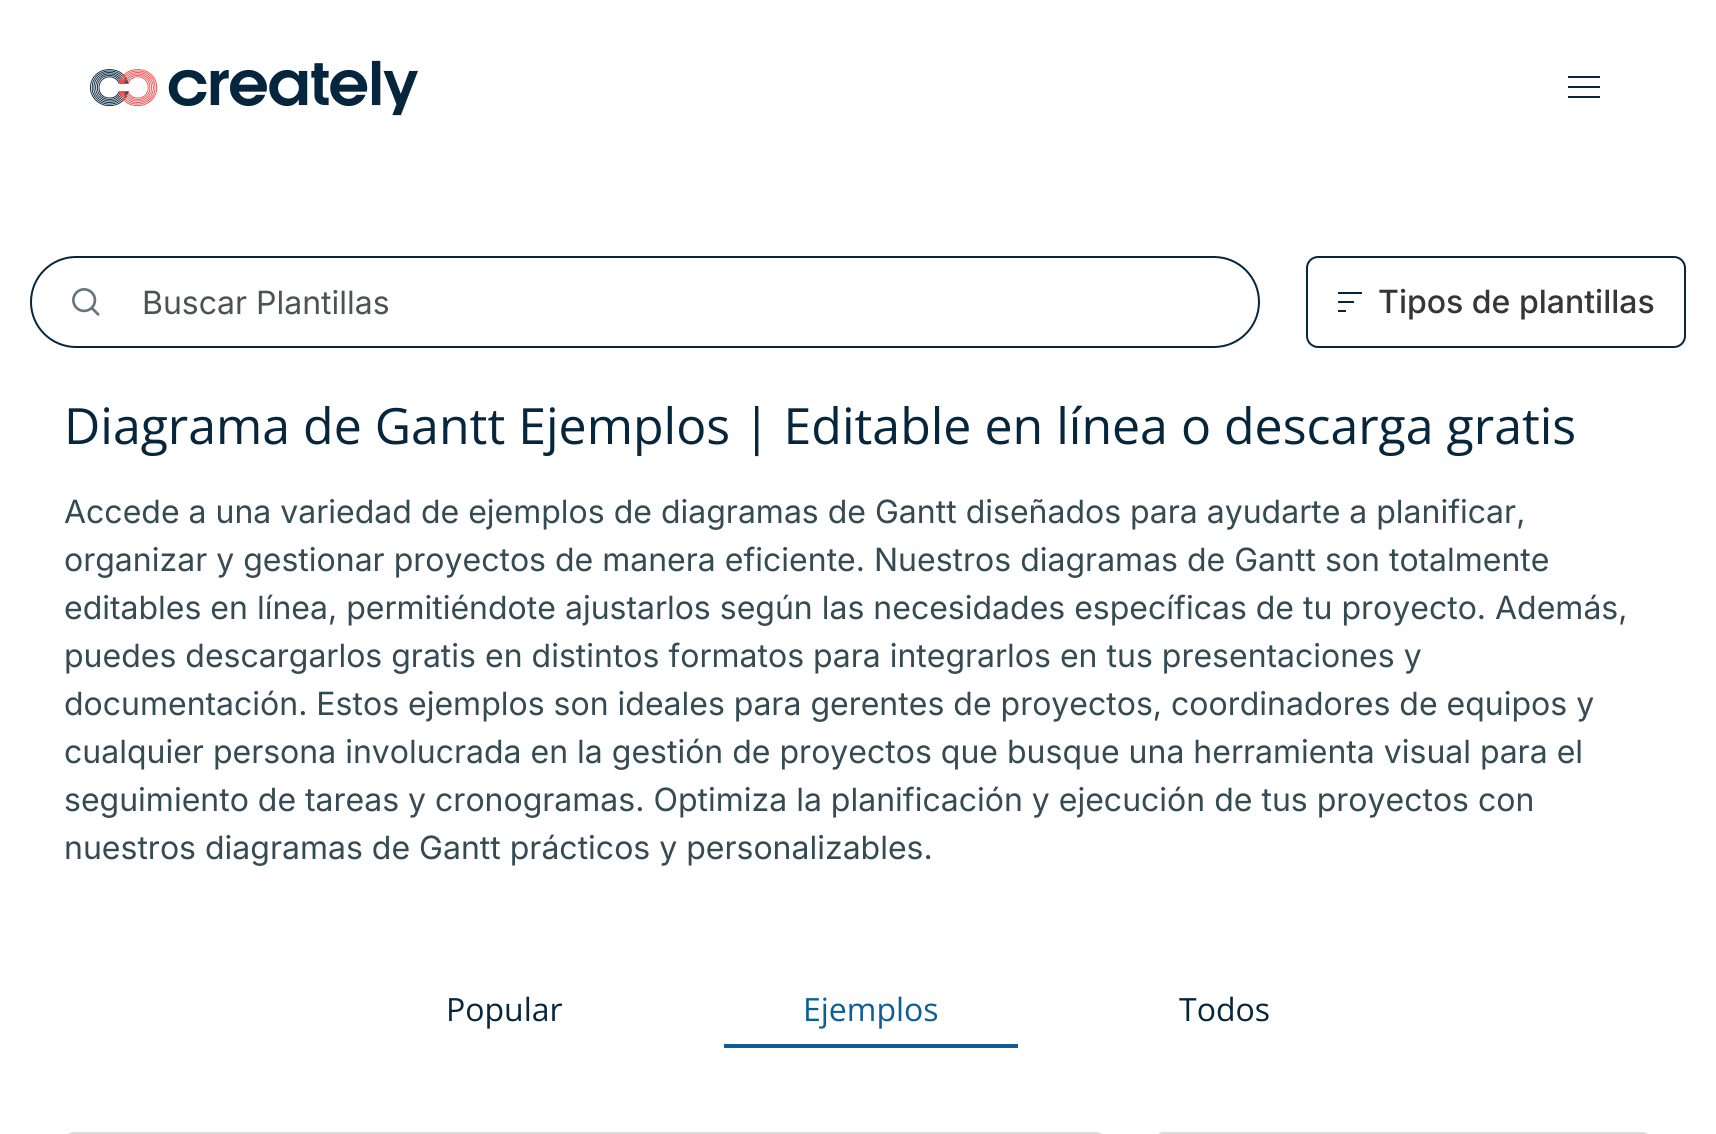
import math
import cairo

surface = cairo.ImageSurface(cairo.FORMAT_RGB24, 1716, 1134)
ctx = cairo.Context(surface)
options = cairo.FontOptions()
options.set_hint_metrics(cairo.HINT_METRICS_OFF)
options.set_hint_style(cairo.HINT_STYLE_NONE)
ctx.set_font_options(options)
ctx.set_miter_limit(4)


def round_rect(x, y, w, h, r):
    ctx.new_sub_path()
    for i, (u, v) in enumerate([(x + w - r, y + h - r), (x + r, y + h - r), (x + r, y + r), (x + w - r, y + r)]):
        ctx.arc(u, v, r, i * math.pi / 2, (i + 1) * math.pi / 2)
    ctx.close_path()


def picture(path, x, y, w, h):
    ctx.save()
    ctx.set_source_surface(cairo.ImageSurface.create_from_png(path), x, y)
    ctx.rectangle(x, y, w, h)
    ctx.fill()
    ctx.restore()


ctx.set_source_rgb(1, 1, 1)
ctx.paint()
picture("img1.png", 90, 60, 328, 56)
ctx.set_source_rgb(0.024, 0.149, 0.239)
ctx.rectangle(1568, 76, 32, 2)
ctx.fill()
ctx.rectangle(1568, 86, 32, 2)
ctx.fill()
ctx.rectangle(1568, 96, 32, 2)
ctx.fill()
picture("img2.png", 72, 288, 28, 28)
round_rect(31, 257, 1228, 90, 45)
ctx.stroke()
ctx.select_font_face("Inter")
ctx.set_font_size(32)
ctx.set_source_rgb(0.294, 0.325, 0.337)
ctx.move_to(142, 314)
ctx.show_text("Buscar Plantillas")
round_rect(1307, 257, 378, 90, 11)
ctx.set_source_rgb(0.024, 0.149, 0.239)
ctx.stroke()
picture("img3.png", 1338, 292, 24, 20)
ctx.select_font_face("Inter Medium")
ctx.set_source_rgb(0.212, 0.212, 0.212)
ctx.move_to(1378, 313)
ctx.show_text("Tipos de plantillas")
ctx.select_font_face("Open Sans")
ctx.set_font_size(50)
ctx.set_source_rgb(0.024, 0.149, 0.239)
ctx.move_to(64, 444)
ctx.show_text("Diagrama de Gantt Ejemplos | Editable en línea o descarga gratis")
ctx.select_font_face("Inter")
ctx.set_font_size(32)
ctx.set_source_rgb(0.208, 0.294, 0.325)
ctx.move_to(64, 523)
ctx.show_text("Accede a una variedad de ejemplos de diagramas de Gantt diseñados para ayudarte a planificar,")
ctx.move_to(64, 571)
ctx.show_text("organizar y gestionar proyectos de manera eficiente. Nuestros diagramas de Gantt son totalmente")
ctx.move_to(64, 619)
ctx.show_text("editables en línea, permitiéndote ajustarlos según las necesidades específicas de tu proyecto. Además,")
ctx.move_to(64, 667)
ctx.show_text("puedes descargarlos gratis en distintos formatos para integrarlos en tus presentaciones y")
ctx.move_to(64, 715)
ctx.show_text("documentación. Estos ejemplos son ideales para gerentes de proyectos, coordinadores de equipos y")
ctx.move_to(64, 763)
ctx.show_text("cualquier persona involucrada en la gestión de proyectos que busque una herramienta visual para el")
ctx.move_to(64, 811)
ctx.show_text("seguimiento de tareas y cronogramas. Optimiza la planificación y ejecución de tus proyectos con")
ctx.move_to(64, 859)
ctx.show_text("nuestros diagramas de Gantt prácticos y personalizables.")
ctx.select_font_face("Open Sans")
ctx.set_source_rgb(0.024, 0.149, 0.239)
ctx.move_to(446, 1021)
ctx.show_text("Popular")
ctx.set_source_rgb(0.047, 0.369, 0.588)
ctx.move_to(803, 1021)
ctx.show_text("Ejemplos")
ctx.rectangle(724, 1044, 294, 4)
ctx.fill()
ctx.set_source_rgb(0.024, 0.149, 0.239)
ctx.move_to(1179, 1021)
ctx.show_text("Todos")
round_rect(65, 1133, 1040, 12, 9)
ctx.set_source_rgb(0.859, 0.859, 0.859)
ctx.stroke()
round_rect(1155, 1133, 496, 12, 9)
ctx.stroke()
surface.write_to_png("page.png")
